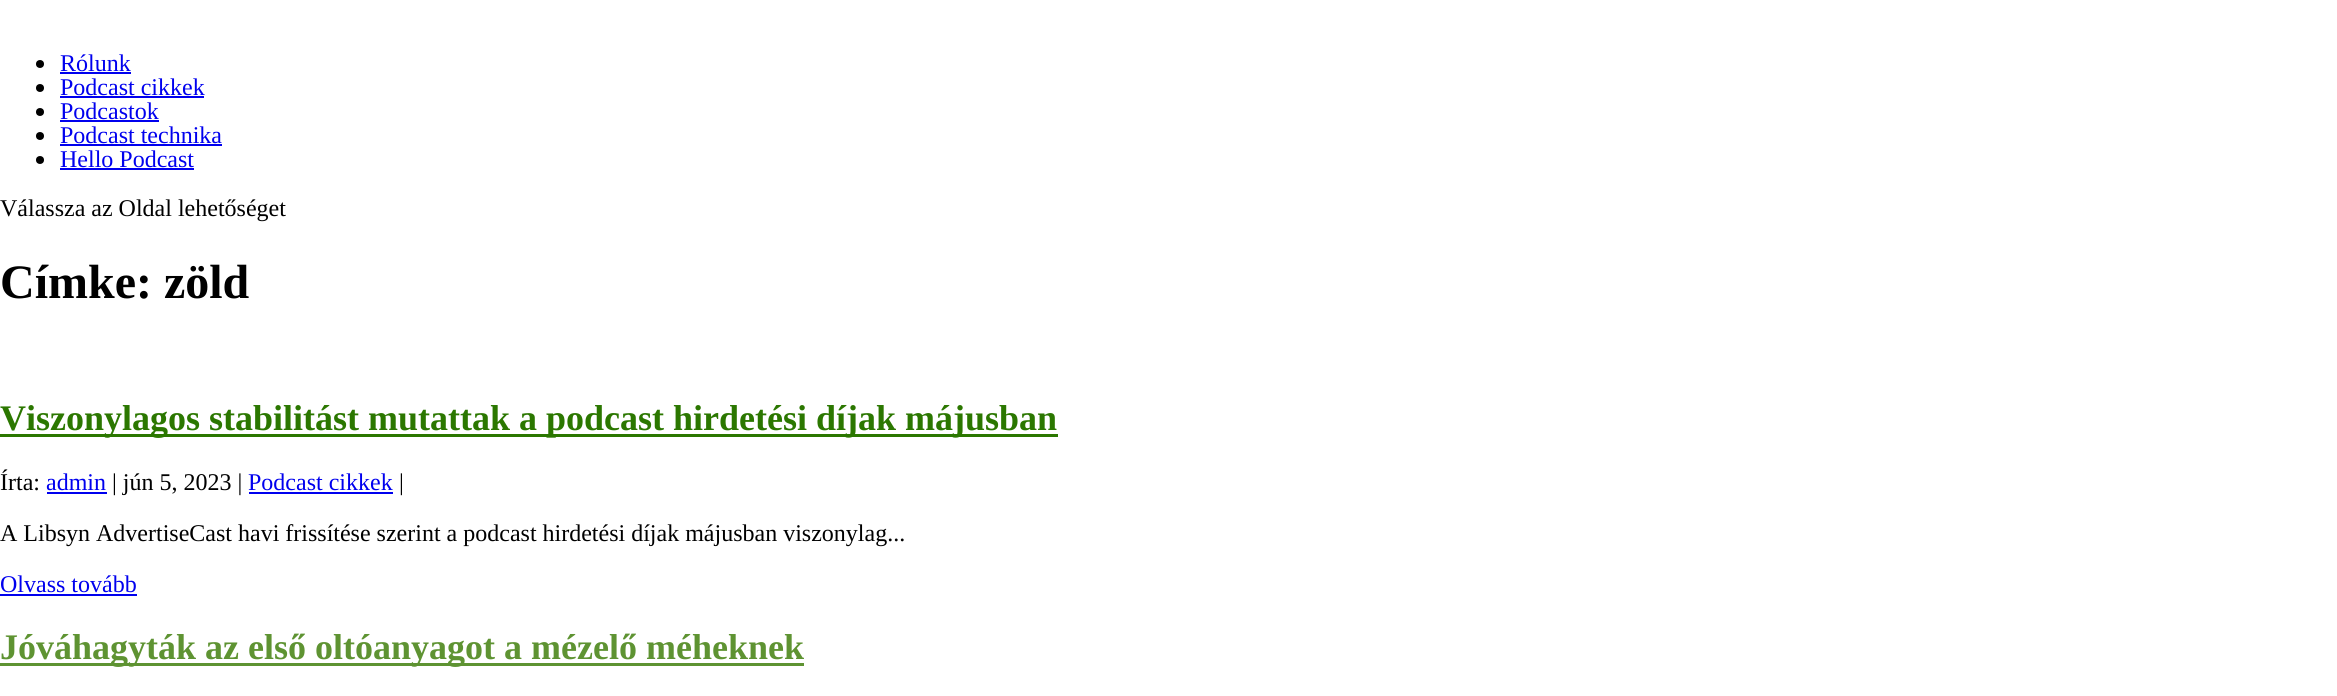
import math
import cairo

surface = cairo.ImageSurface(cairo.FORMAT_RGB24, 2337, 696)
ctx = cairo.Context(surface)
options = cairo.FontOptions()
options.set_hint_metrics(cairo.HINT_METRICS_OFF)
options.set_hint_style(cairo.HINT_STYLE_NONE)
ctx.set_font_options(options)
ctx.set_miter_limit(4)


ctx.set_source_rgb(1, 1, 1)
ctx.paint()
ctx.set_source_rgb(0, 0, 0)
ctx.arc(40, 64, 4, 0, 2 * math.pi)
ctx.fill()
ctx.select_font_face("Liberation Serif")
ctx.set_font_size(24)
ctx.set_source_rgb(0, 0, 0.933)
ctx.move_to(60, 71)
ctx.show_text("Rólunk")
ctx.rectangle(60, 72, 71, 2)
ctx.fill()
ctx.set_source_rgb(0, 0, 0)
ctx.arc(40, 88, 4, 0, 2 * math.pi)
ctx.fill()
ctx.set_source_rgb(0, 0, 0.933)
ctx.move_to(60, 95)
ctx.show_text("Podcast cikkek")
ctx.rectangle(60, 96, 144, 2)
ctx.fill()
ctx.set_source_rgb(0, 0, 0)
ctx.arc(40, 112, 4, 0, 2 * math.pi)
ctx.fill()
ctx.set_source_rgb(0, 0, 0.933)
ctx.move_to(60, 119)
ctx.show_text("Podcastok")
ctx.rectangle(60, 120, 99, 2)
ctx.fill()
ctx.set_source_rgb(0, 0, 0)
ctx.arc(40, 136, 4, 0, 2 * math.pi)
ctx.fill()
ctx.set_source_rgb(0, 0, 0.933)
ctx.move_to(60, 143)
ctx.show_text("Podcast technika")
ctx.rectangle(60, 144, 162, 2)
ctx.fill()
ctx.set_source_rgb(0, 0, 0)
ctx.arc(40, 160, 4, 0, 2 * math.pi)
ctx.fill()
ctx.set_source_rgb(0, 0, 0.933)
ctx.move_to(60, 167)
ctx.show_text("Hello Podcast")
ctx.rectangle(60, 168, 134, 2)
ctx.fill()
ctx.set_source_rgb(0, 0, 0)
ctx.move_to(0, 216)
ctx.show_text("Válassza az Oldal lehetőséget")
ctx.select_font_face("Liberation Serif", cairo.FONT_SLANT_NORMAL, cairo.FONT_WEIGHT_BOLD)
ctx.set_font_size(48)
ctx.move_to(0, 298)
ctx.show_text("Címke: zöld")
ctx.set_source_rgb(0.169, 0.467, 0)
ctx.rectangle(0, 434, 1058, 3)
ctx.fill()
ctx.set_font_size(36)
ctx.move_to(0, 430)
ctx.show_text("Viszonylagos stabilitást mutattak a podcast hirdetési díjak májusban")
ctx.select_font_face("Liberation Serif")
ctx.set_font_size(24)
ctx.set_source_rgb(0, 0, 0)
ctx.move_to(0, 490)
ctx.show_text("Írta:")
ctx.set_source_rgb(0, 0, 0.933)
ctx.move_to(46, 490)
ctx.show_text("admin")
ctx.rectangle(47, 492, 60, 2)
ctx.fill()
ctx.set_source_rgb(0, 0, 0)
ctx.move_to(112, 490)
ctx.show_text("| jún 5, 2023 |")
ctx.set_source_rgb(0, 0, 0.933)
ctx.move_to(248, 490)
ctx.show_text("Podcast cikkek")
ctx.rectangle(249, 492, 144, 2)
ctx.fill()
ctx.set_source_rgb(0, 0, 0)
ctx.move_to(399, 490)
ctx.show_text("|")
ctx.move_to(0, 541)
ctx.show_text("A Libsyn AdvertiseCast havi frissítése szerint a podcast hirdetési díjak májusban viszonylag...")
ctx.set_source_rgb(0, 0, 0.933)
ctx.move_to(0, 592)
ctx.show_text("Olvass tovább")
ctx.rectangle(0, 594, 137, 2)
ctx.fill()
ctx.set_source_rgb(0.369, 0.576, 0.196)
ctx.rectangle(0, 663, 804, 3)
ctx.fill()
ctx.select_font_face("Liberation Serif", cairo.FONT_SLANT_NORMAL, cairo.FONT_WEIGHT_BOLD)
ctx.set_font_size(36)
ctx.move_to(0, 659)
ctx.show_text("Jóváhagyták az első oltóanyagot a mézelő méheknek")
surface.write_to_png("page.png")
